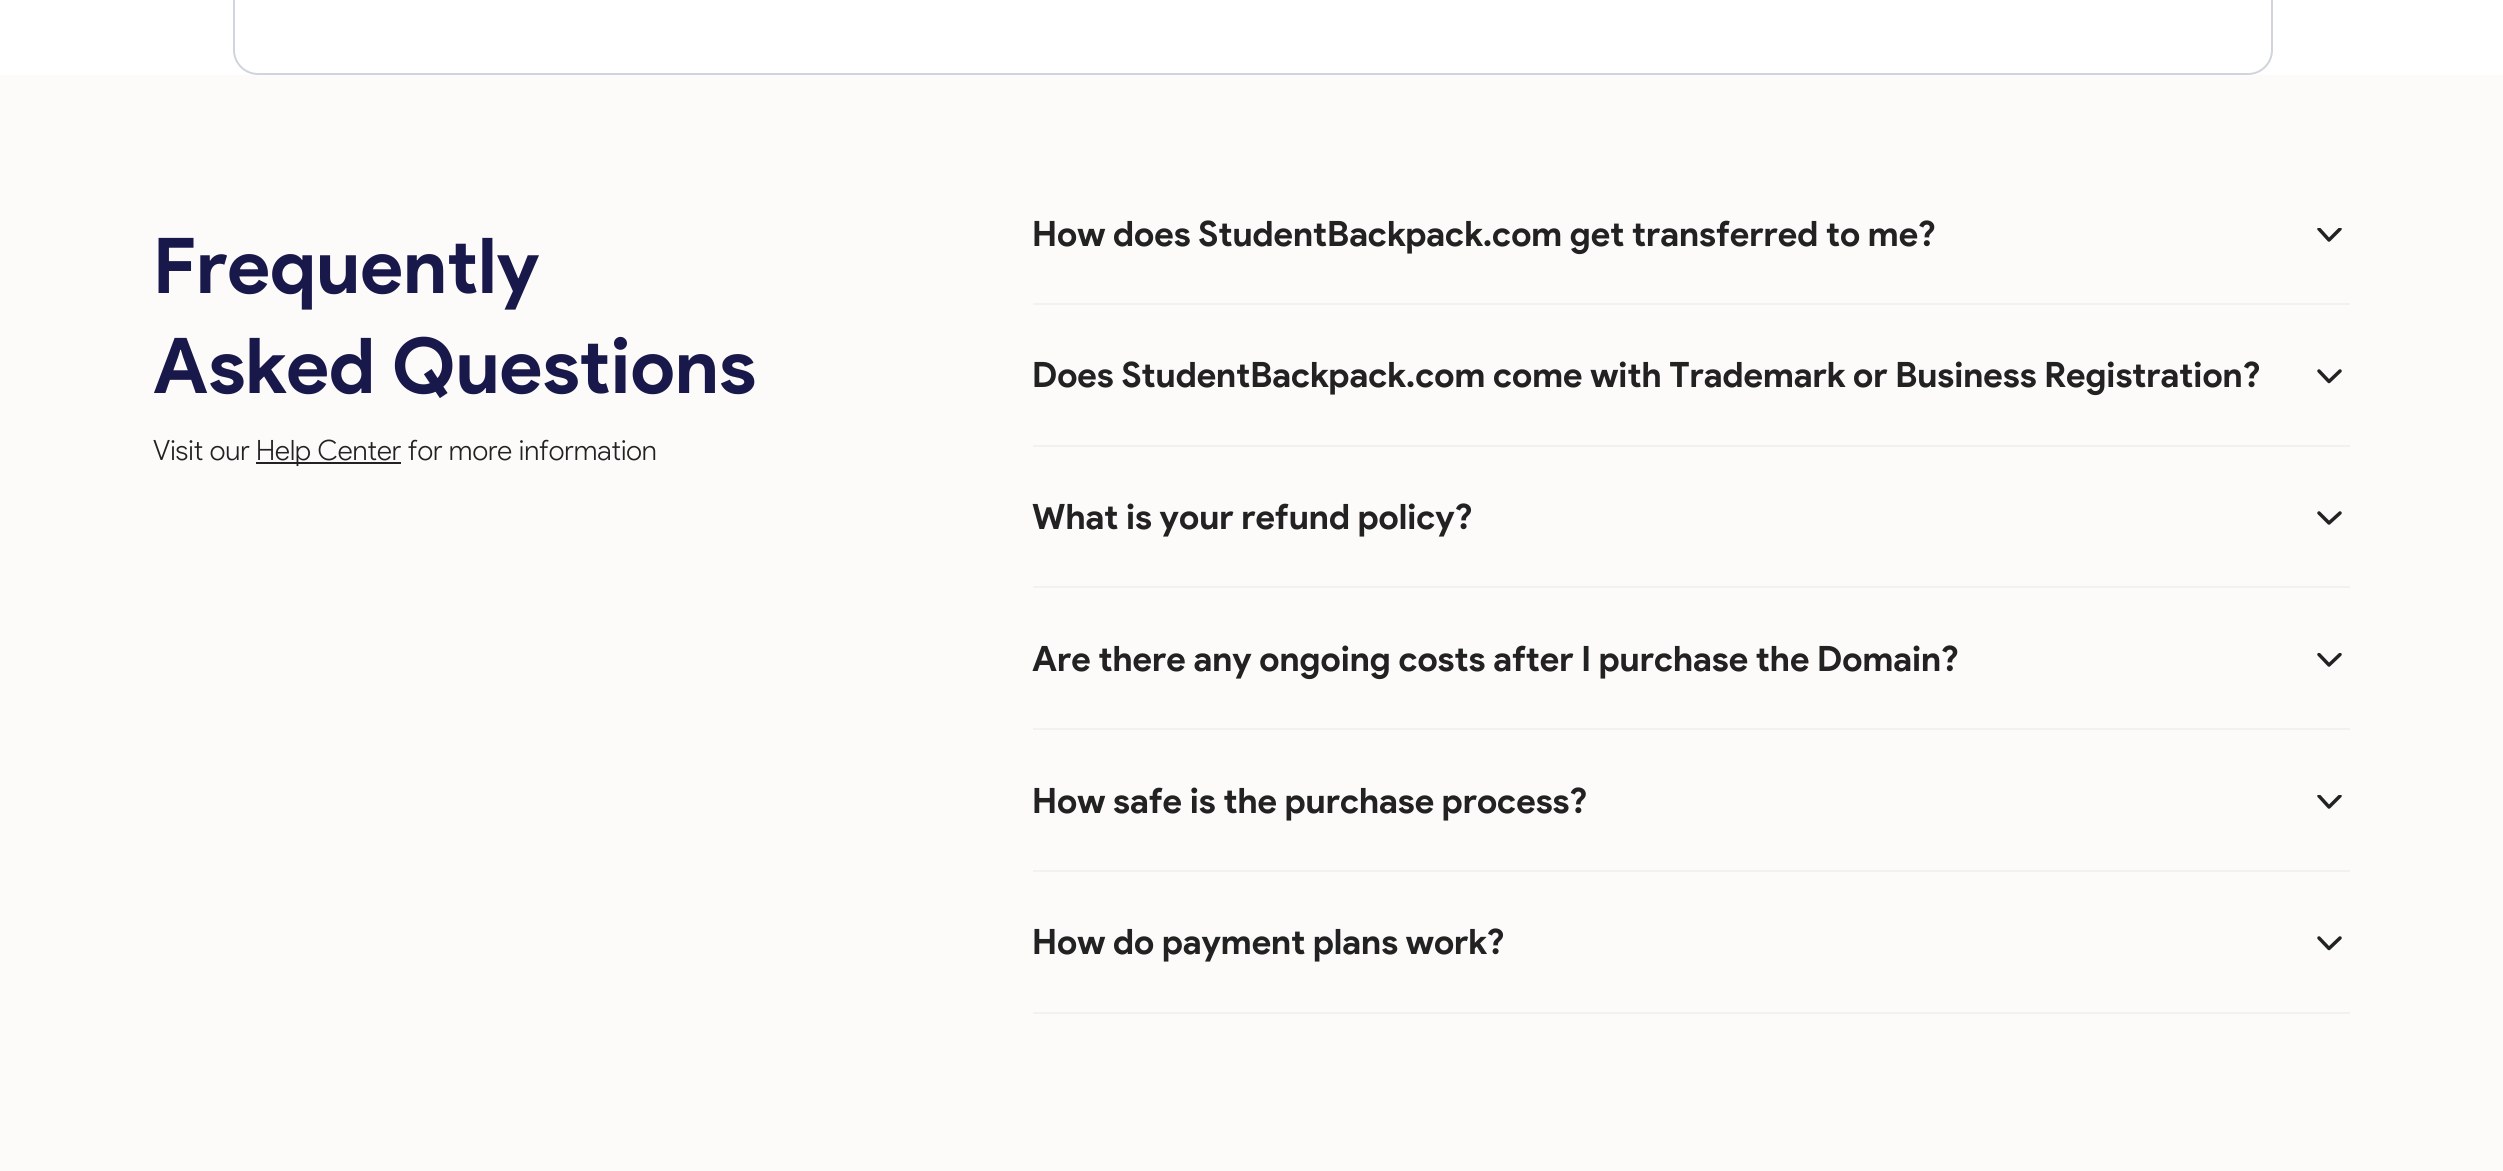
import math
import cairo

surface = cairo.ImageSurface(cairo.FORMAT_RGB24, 2503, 1171)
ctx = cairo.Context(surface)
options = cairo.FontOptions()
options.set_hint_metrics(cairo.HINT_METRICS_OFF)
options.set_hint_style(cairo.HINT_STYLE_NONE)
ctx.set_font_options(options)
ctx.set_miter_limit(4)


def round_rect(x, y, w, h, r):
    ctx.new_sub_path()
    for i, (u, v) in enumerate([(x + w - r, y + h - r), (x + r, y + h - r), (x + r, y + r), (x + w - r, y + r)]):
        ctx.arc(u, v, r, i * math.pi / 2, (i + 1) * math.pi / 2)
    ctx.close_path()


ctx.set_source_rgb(1, 1, 1)
ctx.paint()
round_rect(234, -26, 2038, 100, 24)
ctx.set_source_rgb(0.816, 0.835, 0.867)
ctx.stroke()
ctx.set_source_rgb(0.988, 0.984, 0.98)
ctx.rectangle(0, 75, 2503, 1096)
ctx.fill()
ctx.select_font_face("Product Sans", cairo.FONT_SLANT_NORMAL, cairo.FONT_WEIGHT_BOLD)
ctx.set_font_size(77)
ctx.set_source_rgb(0.098, 0.094, 0.29)
ctx.move_to(153, 293)
ctx.show_text("Frequently")
ctx.move_to(153, 393)
ctx.show_text("Asked Questions")
ctx.select_font_face("Product Sans Light")
ctx.set_font_size(28)
ctx.set_source_rgb(0.133, 0.133, 0.133)
ctx.move_to(153, 460)
ctx.show_text("Visit our")
ctx.rectangle(256, 462, 145, 2)
ctx.fill()
ctx.move_to(256, 460)
ctx.show_text("Help Center for more information")
ctx.set_source_rgb(0.945, 0.945, 0.945)
ctx.rectangle(1033, 303, 1317, 2)
ctx.fill()
ctx.select_font_face("Product Sans", cairo.FONT_SLANT_NORMAL, cairo.FONT_WEIGHT_BOLD)
ctx.set_font_size(35)
ctx.set_source_rgb(0.133, 0.133, 0.133)
ctx.move_to(1032, 246)
ctx.show_text("How does StudentBackpack.com get transferred to me?")
ctx.save()
ctx.rectangle(2317, 228, 25, 14)
ctx.clip()
ctx.new_path()
ctx.move_to(2319, 229)
ctx.line_to(2329, 240)
ctx.line_to(2340, 229)
ctx.set_line_width(3.5)
ctx.set_line_cap(cairo.LINE_CAP_ROUND)
ctx.set_line_join(cairo.LINE_JOIN_ROUND)
ctx.stroke()
ctx.restore()
ctx.set_source_rgb(0.945, 0.945, 0.945)
ctx.rectangle(1033, 445, 1317, 2)
ctx.fill()
ctx.set_source_rgb(0.133, 0.133, 0.133)
ctx.move_to(1032, 387)
ctx.show_text("Does StudentBackpack.com come with Trademark or Business Registration?")
ctx.new_path()
ctx.move_to(2319, 371)
ctx.line_to(2329, 381.5)
ctx.line_to(2340, 371)
ctx.set_line_width(3.5)
ctx.set_line_cap(cairo.LINE_CAP_ROUND)
ctx.set_line_join(cairo.LINE_JOIN_ROUND)
ctx.stroke()
ctx.set_source_rgb(0.945, 0.945, 0.945)
ctx.rectangle(1033, 586, 1317, 2)
ctx.fill()
ctx.set_source_rgb(0.133, 0.133, 0.133)
ctx.move_to(1032, 529)
ctx.show_text("What is your refund policy?")
ctx.new_path()
ctx.move_to(2319, 513)
ctx.line_to(2329, 523)
ctx.line_to(2340, 513)
ctx.stroke()
ctx.set_source_rgb(0.945, 0.945, 0.945)
ctx.rectangle(1033, 728, 1317, 2)
ctx.fill()
ctx.set_source_rgb(0.133, 0.133, 0.133)
ctx.move_to(1032, 671)
ctx.show_text("Are there any ongoing costs after I purchase the Domain?")
ctx.save()
ctx.rectangle(2317, 653, 25, 14)
ctx.clip()
ctx.new_path()
ctx.move_to(2319, 654.5)
ctx.line_to(2329, 665)
ctx.line_to(2340, 654.5)
ctx.stroke()
ctx.restore()
ctx.set_source_rgb(0.945, 0.945, 0.945)
ctx.rectangle(1033, 870, 1317, 2)
ctx.fill()
ctx.set_source_rgb(0.133, 0.133, 0.133)
ctx.move_to(1032, 813)
ctx.show_text("How safe is the purchase process?")
ctx.save()
ctx.rectangle(2317, 795, 25, 14)
ctx.clip()
ctx.new_path()
ctx.move_to(2319, 796)
ctx.line_to(2329, 807)
ctx.line_to(2340, 796)
ctx.stroke()
ctx.restore()
ctx.set_source_rgb(0.945, 0.945, 0.945)
ctx.rectangle(1033, 1012, 1317, 2)
ctx.fill()
ctx.set_source_rgb(0.133, 0.133, 0.133)
ctx.move_to(1032, 954)
ctx.show_text("How do payment plans work?")
ctx.new_path()
ctx.move_to(2319, 938)
ctx.line_to(2329, 948.5)
ctx.line_to(2340, 938)
ctx.stroke()
surface.write_to_png("page.png")
